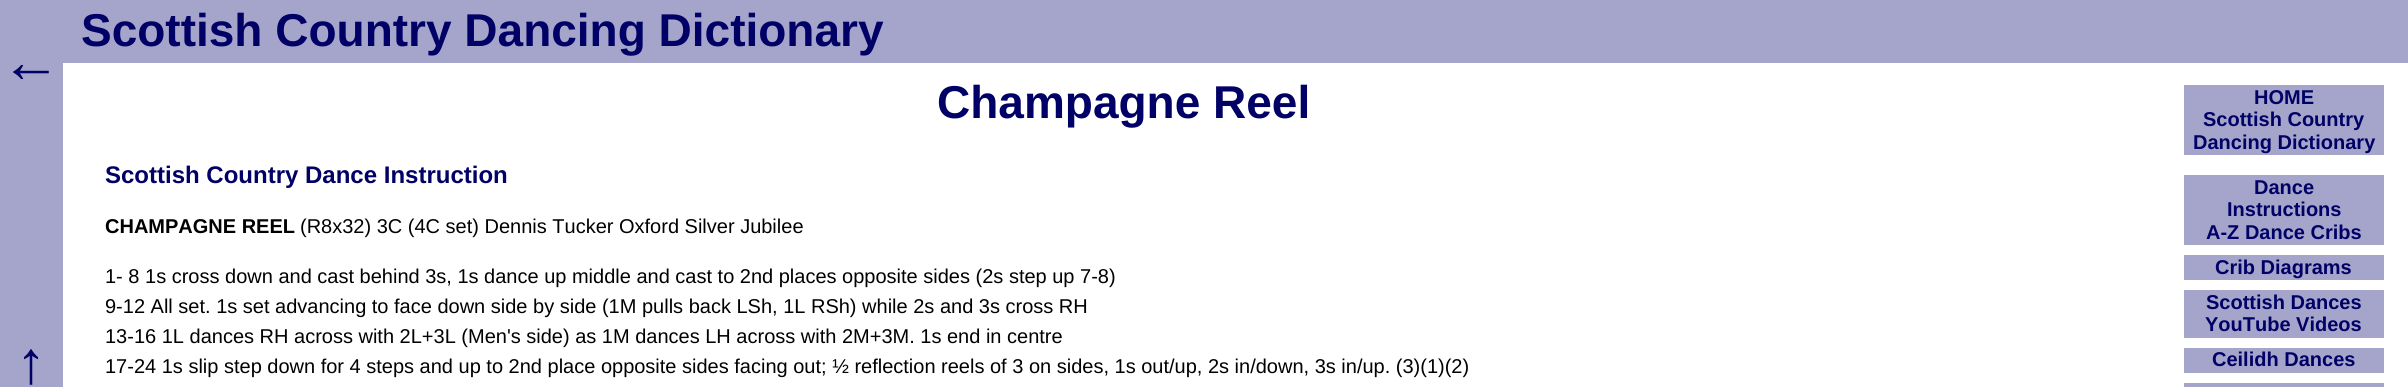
import math
import cairo

surface = cairo.ImageSurface(cairo.FORMAT_RGB24, 2408, 387)
ctx = cairo.Context(surface)
options = cairo.FontOptions()
options.set_hint_metrics(cairo.HINT_METRICS_OFF)
options.set_hint_style(cairo.HINT_STYLE_NONE)
ctx.set_font_options(options)
ctx.set_miter_limit(4)


ctx.set_source_rgb(1, 1, 1)
ctx.paint()
ctx.set_source_rgb(0.647, 0.647, 0.796)
ctx.rectangle(0, 0, 63, 387)
ctx.fill()
ctx.rectangle(63, 0, 2345, 63)
ctx.fill()
ctx.select_font_face("Liberation Sans", cairo.FONT_SLANT_NORMAL, cairo.FONT_WEIGHT_BOLD)
ctx.set_font_size(46)
ctx.set_source_rgb(0, 0, 0.4)
ctx.move_to(81, 46)
ctx.show_text("Scottish Country Dancing Dictionary")
ctx.select_font_face("Liberation Sans")
ctx.set_font_size(60)
ctx.move_to(1, 82)
ctx.show_text("←")
ctx.move_to(16, 383)
ctx.show_text("↑")
ctx.select_font_face("Liberation Sans", cairo.FONT_SLANT_NORMAL, cairo.FONT_WEIGHT_BOLD)
ctx.set_font_size(46)
ctx.move_to(937, 118)
ctx.show_text("Champagne Reel")
ctx.set_font_size(24)
ctx.move_to(105, 183)
ctx.show_text("Scottish Country Dance Instruction")
ctx.set_font_size(20)
ctx.set_source_rgb(0, 0, 0)
ctx.move_to(105, 233)
ctx.show_text("CHAMPAGNE REEL")
ctx.select_font_face("Liberation Sans")
ctx.move_to(300, 233)
ctx.show_text("(R8x32) 3C (4C set) Dennis Tucker Oxford Silver Jubilee")
ctx.move_to(105, 283)
ctx.show_text("1- 8 1s cross down and cast behind 3s, 1s dance up middle and cast to 2nd places opposite sides (2s step up 7-8)")
ctx.move_to(105, 313)
ctx.show_text("9-12 All set. 1s set advancing to face down side by side (1M pulls back LSh, 1L RSh) while 2s and 3s cross RH")
ctx.move_to(105, 343)
ctx.show_text("13-16 1L dances RH across with 2L+3L (Men's side) as 1M dances LH across with 2M+3M. 1s end in centre")
ctx.move_to(105, 373)
ctx.show_text("17-24 1s slip step down for 4 steps and up to 2nd place opposite sides facing out; ½ reflection reels of 3 on sides, 1s out/up, 2s in/down, 3s in/up. (3)(1)(2)")
ctx.set_source_rgb(0.647, 0.647, 0.796)
ctx.rectangle(2184, 85, 200, 70)
ctx.fill()
ctx.select_font_face("Liberation Sans", cairo.FONT_SLANT_NORMAL, cairo.FONT_WEIGHT_BOLD)
ctx.set_source_rgb(0, 0, 0.4)
ctx.move_to(2254, 104)
ctx.show_text("HOME")
ctx.move_to(2203, 126)
ctx.show_text("Scottish Country")
ctx.move_to(2193, 149)
ctx.show_text("Dancing Dictionary")
ctx.set_source_rgb(0.647, 0.647, 0.796)
ctx.rectangle(2184, 175, 200, 70)
ctx.fill()
ctx.set_source_rgb(0, 0, 0.4)
ctx.move_to(2254, 194)
ctx.show_text("Dance")
ctx.move_to(2227, 216)
ctx.show_text("Instructions")
ctx.move_to(2206, 239)
ctx.show_text("A-Z Dance Cribs")
ctx.set_source_rgb(0.647, 0.647, 0.796)
ctx.rectangle(2184, 255, 200, 25)
ctx.fill()
ctx.set_source_rgb(0, 0, 0.4)
ctx.move_to(2215, 274)
ctx.show_text("Crib Diagrams")
ctx.set_source_rgb(0.647, 0.647, 0.796)
ctx.rectangle(2184, 290, 200, 48)
ctx.fill()
ctx.set_source_rgb(0, 0, 0.4)
ctx.move_to(2206, 309)
ctx.show_text("Scottish Dances")
ctx.move_to(2205, 331)
ctx.show_text("YouTube Videos")
ctx.set_source_rgb(0.647, 0.647, 0.796)
ctx.rectangle(2184, 348, 200, 25)
ctx.fill()
ctx.set_source_rgb(0, 0, 0.4)
ctx.move_to(2212, 366)
ctx.show_text("Ceilidh Dances")
ctx.set_source_rgb(0.647, 0.647, 0.796)
ctx.rectangle(2184, 383, 200, 4)
ctx.fill()
surface.write_to_png("page.png")
